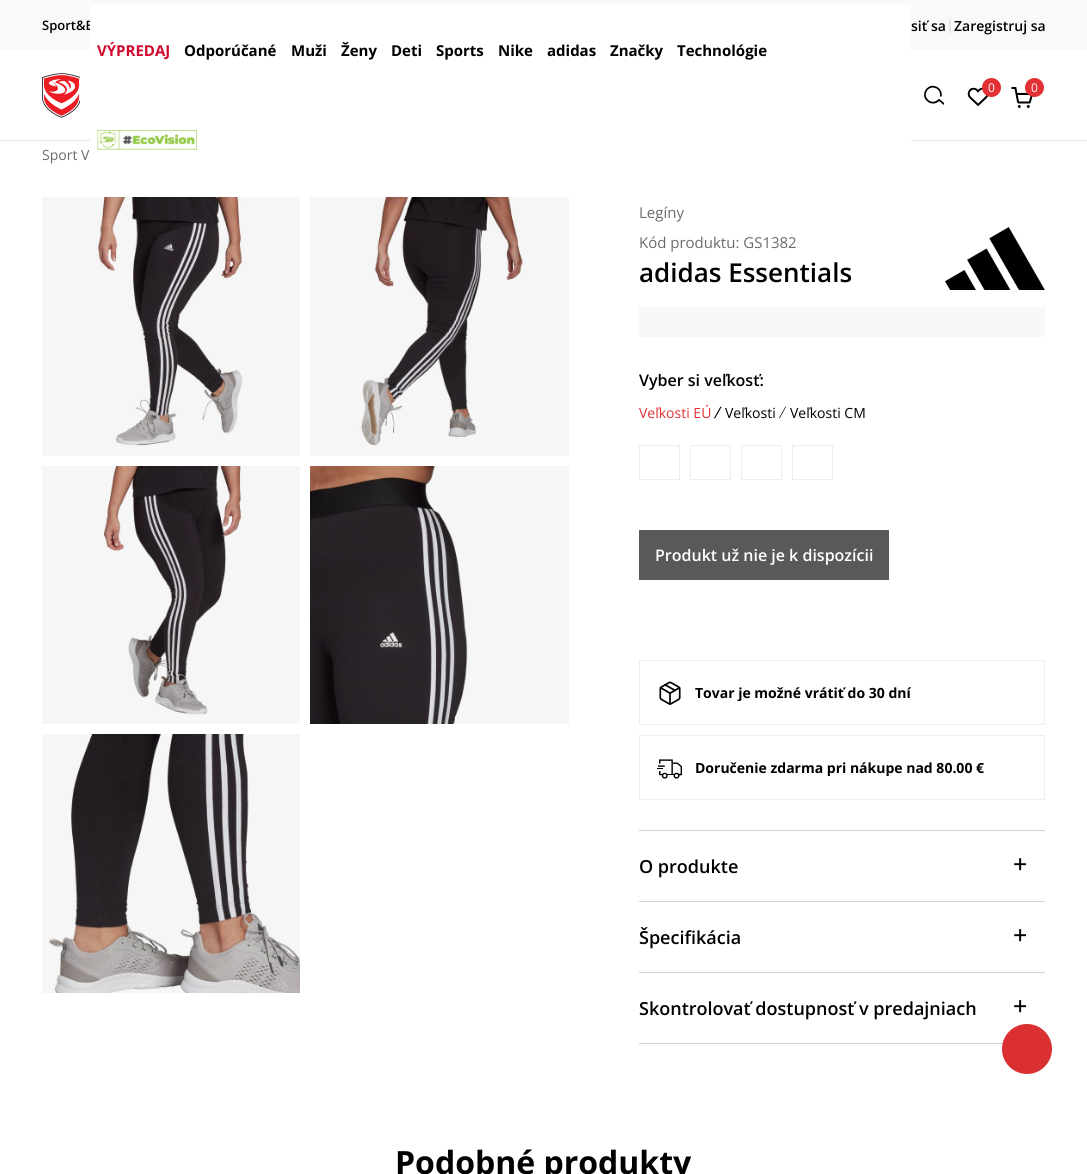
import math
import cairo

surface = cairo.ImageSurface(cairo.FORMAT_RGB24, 1087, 1174)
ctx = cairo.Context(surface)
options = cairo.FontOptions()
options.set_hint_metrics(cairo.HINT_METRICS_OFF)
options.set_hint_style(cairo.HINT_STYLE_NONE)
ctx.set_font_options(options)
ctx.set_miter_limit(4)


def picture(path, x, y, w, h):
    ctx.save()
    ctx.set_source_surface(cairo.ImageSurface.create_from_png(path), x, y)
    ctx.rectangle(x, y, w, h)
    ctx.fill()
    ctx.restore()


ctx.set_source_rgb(1, 1, 1)
ctx.paint()
ctx.set_source_rgb(0.898, 0.898, 0.898)
ctx.rectangle(0, 140, 1087, 1)
ctx.fill()
ctx.set_source_rgb(0.973, 0.973, 0.973)
ctx.rectangle(0, 0, 1087, 50)
ctx.fill()
ctx.select_font_face("Open Sans SemiBold")
ctx.set_font_size(13)
ctx.set_source_rgb(0, 0, 0)
ctx.move_to(42, 30)
ctx.show_text("Sport&B")
ctx.set_font_size(14)
ctx.move_to(911, 31)
ctx.show_text("siť sa")
ctx.set_source_rgb(0.898, 0.898, 0.898)
ctx.rectangle(949, 19, 2, 14)
ctx.fill()
ctx.set_source_rgb(0, 0, 0)
ctx.move_to(954, 31)
ctx.show_text("Zaregistruj sa")
ctx.set_source_rgb(1, 1, 1)
ctx.rectangle(90, 5, 821, 136)
ctx.fill()
ctx.select_font_face("Open Sans", cairo.FONT_SLANT_NORMAL, cairo.FONT_WEIGHT_BOLD)
ctx.set_font_size(15)
ctx.set_source_rgb(0.816, 0.039, 0.176)
ctx.move_to(97, 56)
ctx.show_text("VÝPREDAJ")
ctx.set_source_rgb(0, 0, 0)
ctx.move_to(184, 56)
ctx.show_text("Odporúčané")
ctx.move_to(291, 56)
ctx.show_text("Muži")
ctx.move_to(341, 56)
ctx.show_text("Ženy")
ctx.move_to(391, 56)
ctx.show_text("Deti")
ctx.move_to(436, 56)
ctx.show_text("Sports")
ctx.move_to(498, 56)
ctx.show_text("Nike")
ctx.move_to(547, 56)
ctx.show_text("adidas")
ctx.move_to(610, 56)
ctx.show_text("Značky")
ctx.move_to(677, 56)
ctx.show_text("Technológie")
picture("img1.png", 97, 130, 100, 20)
picture("img2.png", 42, 73, 38, 45)
picture("img3.png", 924, 85, 20, 20)
picture("img4.png", 967, 87, 21, 20)
ctx.set_source_rgb(0.886, 0.188, 0.204)
ctx.arc(991.5, 87.5, 9.5, 0, 2 * math.pi)
ctx.fill()
ctx.select_font_face("Open Sans")
ctx.set_font_size(12)
ctx.set_source_rgb(1, 1, 1)
ctx.move_to(988, 92)
ctx.show_text("0")
picture("img5.png", 1011, 87, 22, 21)
ctx.set_source_rgb(0.886, 0.188, 0.204)
ctx.arc(1034.5, 87.5, 9.5, 0, 2 * math.pi)
ctx.fill()
ctx.set_source_rgb(1, 1, 1)
ctx.move_to(1031, 92)
ctx.show_text("0")
ctx.set_font_size(14)
ctx.set_source_rgb(0.42, 0.42, 0.42)
ctx.move_to(42, 160)
ctx.show_text("Sport V")
picture("img6.png", 42, 197, 258, 259)
picture("img7.png", 310, 197, 259, 259)
picture("img8.png", 42, 466, 258, 258)
picture("img9.png", 310, 466, 259, 258)
picture("img10.png", 42, 734, 258, 259)
ctx.set_font_size(15)
ctx.move_to(639, 218)
ctx.show_text("Legíny")
ctx.move_to(639, 248)
ctx.show_text("Kód produktu: GS1382")
ctx.select_font_face("Open Sans SemiBold")
ctx.set_font_size(26)
ctx.set_source_rgb(0, 0, 0)
ctx.move_to(639, 282)
ctx.show_text("adidas Essentials")
picture("img11.png", 945, 227, 100, 63)
ctx.set_source_rgb(0.969, 0.969, 0.969)
ctx.rectangle(639, 307, 406, 30)
ctx.fill()
ctx.set_font_size(16)
ctx.set_source_rgb(0, 0, 0)
ctx.move_to(639, 386)
ctx.show_text("Vyber si veľkosť:")
ctx.select_font_face("Open Sans")
ctx.set_font_size(14)
ctx.set_source_rgb(0.886, 0.188, 0.204)
ctx.move_to(639, 418)
ctx.show_text("Veľkosti EÚ")
ctx.set_source_rgb(0, 0, 0)
ctx.new_path()
ctx.move_to(720.5, 406.5)
ctx.line_to(721.5, 407)
ctx.line_to(715, 418.5)
ctx.line_to(714, 418)
ctx.close_path()
ctx.fill()
ctx.move_to(725, 418)
ctx.show_text("Veľkosti")
ctx.new_path()
ctx.move_to(785.5, 406.5)
ctx.line_to(786, 407)
ctx.line_to(779.5, 418.5)
ctx.line_to(779, 418)
ctx.close_path()
ctx.fill()
ctx.move_to(790, 418)
ctx.show_text("Veľkosti CM")
ctx.rectangle(639.5, 445.5, 40, 34)
ctx.set_source_rgb(0.929, 0.929, 0.929)
ctx.set_line_width(1)
ctx.stroke()
ctx.rectangle(690.5, 445.5, 40, 34)
ctx.stroke()
ctx.rectangle(741.5, 445.5, 40, 34)
ctx.stroke()
ctx.rectangle(792.5, 445.5, 40, 34)
ctx.stroke()
ctx.set_source_rgb(0.349, 0.349, 0.349)
ctx.rectangle(639, 530, 250, 50)
ctx.fill()
ctx.select_font_face("Open Sans SemiBold")
ctx.set_font_size(16)
ctx.set_source_rgb(1, 1, 1)
ctx.move_to(655, 561)
ctx.show_text("Produkt už nie je k dispozícii")
ctx.set_source_rgb(0.933, 0.933, 0.933)
ctx.rectangle(639, 660, 406, 1)
ctx.fill()
ctx.rectangle(639, 724, 56, 1)
ctx.fill()
ctx.rectangle(639, 660, 1, 65)
ctx.fill()
picture("img12.png", 659, 681, 22, 24)
ctx.rectangle(1044, 660, 1, 65)
ctx.fill()
ctx.rectangle(695, 724, 350, 1)
ctx.fill()
ctx.save()
ctx.rectangle(695, 685, 216, 16)
ctx.clip()
ctx.select_font_face("Open Sans", cairo.FONT_SLANT_NORMAL, cairo.FONT_WEIGHT_BOLD)
ctx.set_font_size(14)
ctx.set_source_rgb(0, 0, 0)
ctx.move_to(695, 698)
ctx.show_text("Tovar je možné vrátiť do 30 dní")
ctx.restore()
ctx.rectangle(639, 735, 406, 1)
ctx.fill()
ctx.rectangle(639, 799, 56, 1)
ctx.fill()
ctx.rectangle(639, 735, 1, 65)
ctx.fill()
picture("img13.png", 657, 759, 25, 20)
ctx.rectangle(1044, 735, 1, 65)
ctx.fill()
ctx.rectangle(695, 799, 350, 1)
ctx.fill()
ctx.save()
ctx.rectangle(695, 760, 289, 16)
ctx.clip()
ctx.select_font_face("Open Sans", cairo.FONT_SLANT_NORMAL, cairo.FONT_WEIGHT_BOLD)
ctx.set_font_size(14)
ctx.set_source_rgb(0, 0, 0)
ctx.move_to(695, 773)
ctx.show_text("Doručenie zdarma pri nákupe nad 80.00 €")
ctx.restore()
ctx.set_source_rgb(0.82, 0.82, 0.82)
ctx.rectangle(639, 830, 406, 1)
ctx.fill()
ctx.rectangle(639, 901, 406, 1)
ctx.fill()
ctx.set_font_size(18)
ctx.set_source_rgb(0, 0, 0)
ctx.move_to(639, 873)
ctx.show_text("O produkte")
ctx.select_font_face("Open Sans Medium")
ctx.set_font_size(25)
ctx.move_to(1013, 873)
ctx.show_text("+")
ctx.set_source_rgb(0.82, 0.82, 0.82)
ctx.rectangle(639, 972, 406, 1)
ctx.fill()
ctx.select_font_face("Open Sans SemiBold")
ctx.set_font_size(18)
ctx.set_source_rgb(0, 0, 0)
ctx.move_to(639, 944)
ctx.show_text("Špecifikácia")
ctx.select_font_face("Open Sans Medium")
ctx.set_font_size(25)
ctx.move_to(1013, 944)
ctx.show_text("+")
ctx.set_source_rgb(0.82, 0.82, 0.82)
ctx.rectangle(639, 1043, 364, 1)
ctx.fill()
ctx.select_font_face("Open Sans SemiBold")
ctx.set_font_size(18)
ctx.set_source_rgb(0, 0, 0)
ctx.move_to(639, 1015)
ctx.show_text("Skontrolovať dostupnosť v predajniach")
ctx.select_font_face("Open Sans Medium")
ctx.set_font_size(25)
ctx.move_to(1013, 1015)
ctx.show_text("+")
ctx.select_font_face("Open Sans", cairo.FONT_SLANT_NORMAL, cairo.FONT_WEIGHT_BOLD)
ctx.set_font_size(32)
ctx.move_to(395, 1174)
ctx.show_text("Podobné produkty")
ctx.set_source_rgb(0.855, 0.188, 0.196)
ctx.new_path()
ctx.arc(1027, 1049, 25, 0, 2 * math.pi)
ctx.fill()
surface.write_to_png("page.png")
